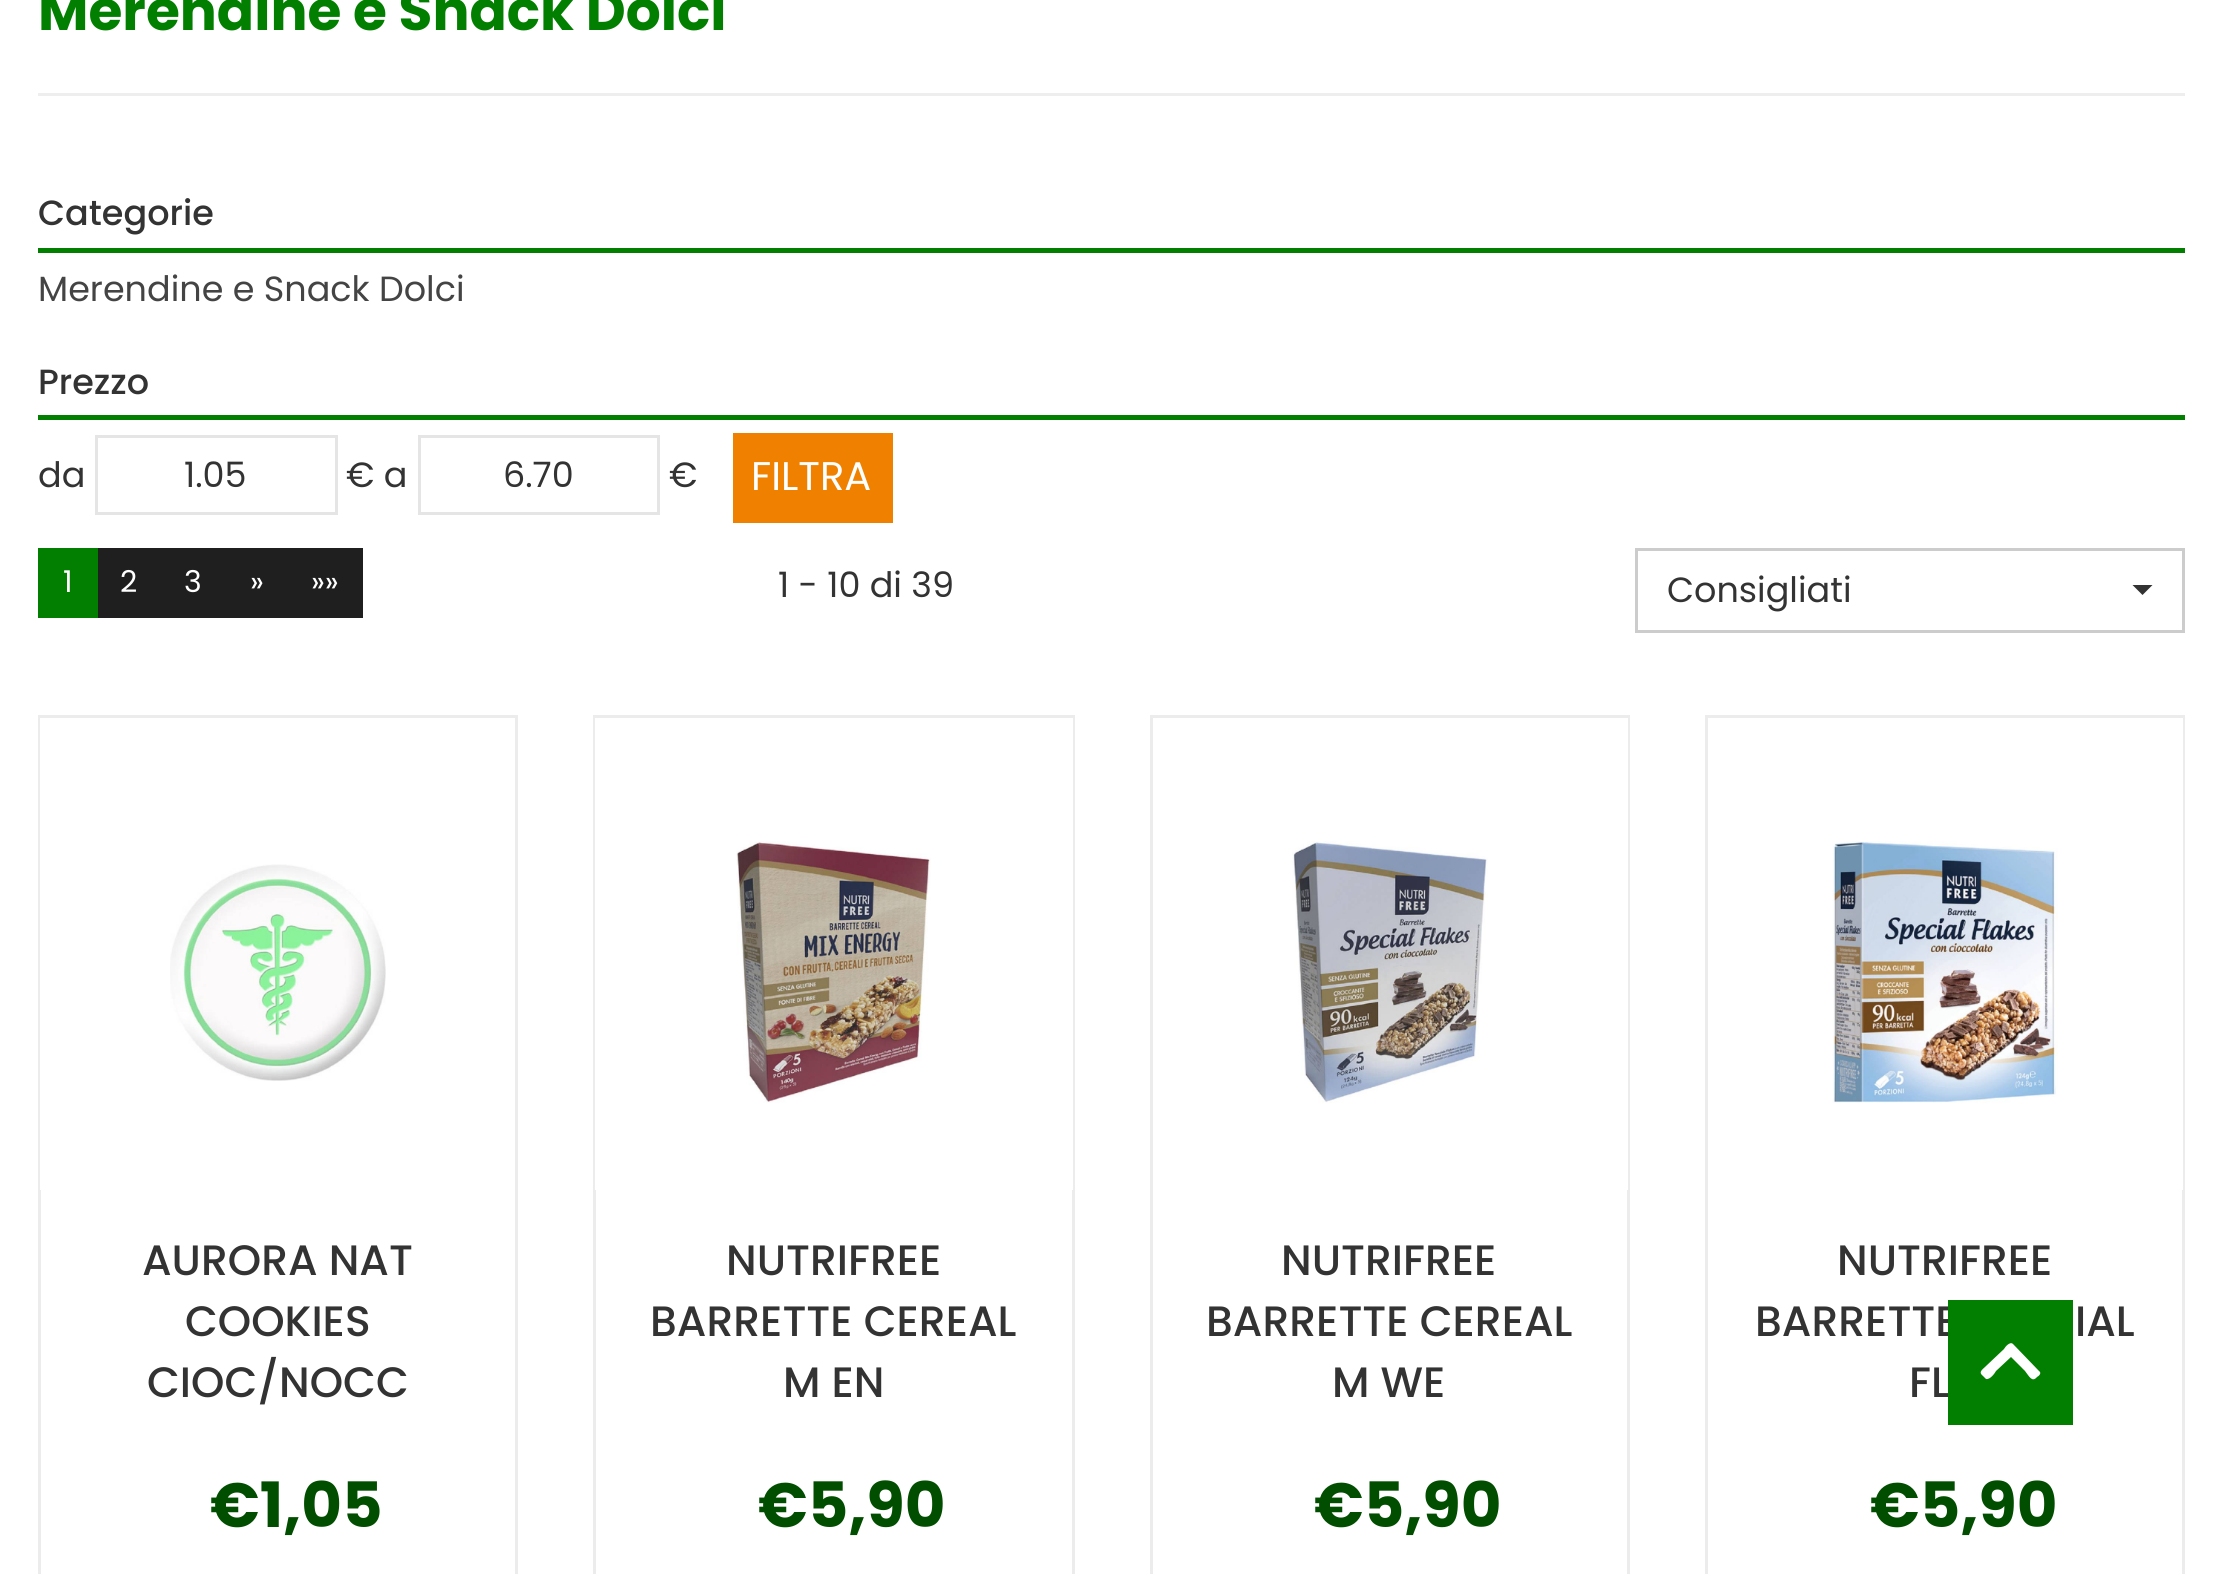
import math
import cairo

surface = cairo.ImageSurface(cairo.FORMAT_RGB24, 2221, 1574)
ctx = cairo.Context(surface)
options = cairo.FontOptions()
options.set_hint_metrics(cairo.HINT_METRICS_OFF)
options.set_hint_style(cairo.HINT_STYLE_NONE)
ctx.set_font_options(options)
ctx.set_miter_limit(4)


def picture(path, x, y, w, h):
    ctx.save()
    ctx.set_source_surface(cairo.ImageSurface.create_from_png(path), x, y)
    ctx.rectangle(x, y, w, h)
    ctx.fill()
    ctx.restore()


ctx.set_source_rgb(1, 1, 1)
ctx.paint()
ctx.select_font_face("Poppins", cairo.FONT_SLANT_NORMAL, cairo.FONT_WEIGHT_BOLD)
ctx.set_font_size(55)
ctx.set_source_rgb(0.008, 0.498, 0)
ctx.move_to(38, 30)
ctx.show_text("Merendine e Snack Dolci")
ctx.set_source_rgb(0.933, 0.933, 0.933)
ctx.rectangle(38, 93, 2147, 3)
ctx.fill()
ctx.select_font_face("Poppins Medium")
ctx.set_font_size(35)
ctx.set_source_rgb(0.2, 0.2, 0.2)
ctx.move_to(38, 225)
ctx.show_text("Categorie")
ctx.set_source_rgb(0.008, 0.498, 0)
ctx.rectangle(38, 248, 2147, 5)
ctx.fill()
ctx.select_font_face("Poppins")
ctx.set_source_rgb(0.267, 0.267, 0.267)
ctx.move_to(38, 301)
ctx.show_text("Merendine e Snack Dolci")
ctx.select_font_face("Poppins Medium")
ctx.set_source_rgb(0.2, 0.2, 0.2)
ctx.move_to(38, 394)
ctx.show_text("Prezzo")
ctx.set_source_rgb(0.008, 0.498, 0)
ctx.rectangle(38, 415, 2147, 5)
ctx.fill()
ctx.select_font_face("Poppins")
ctx.set_source_rgb(0.2, 0.2, 0.2)
ctx.move_to(38, 487)
ctx.show_text("da")
ctx.rectangle(96.5, 436.5, 240, 77)
ctx.set_source_rgb(0.898, 0.898, 0.898)
ctx.set_line_width(3)
ctx.stroke()
ctx.set_source_rgb(0.2, 0.2, 0.2)
ctx.move_to(184, 487)
ctx.show_text("1.05")
ctx.move_to(346, 487)
ctx.show_text("€ a")
ctx.rectangle(419.5, 436.5, 239, 77)
ctx.set_source_rgb(0.898, 0.898, 0.898)
ctx.stroke()
ctx.set_source_rgb(0.2, 0.2, 0.2)
ctx.move_to(503, 487)
ctx.show_text("6.70")
ctx.move_to(669, 487)
ctx.show_text("€")
ctx.set_source_rgb(0.941, 0.506, 0)
ctx.rectangle(733, 433, 160, 90)
ctx.fill()
ctx.set_font_size(40)
ctx.set_source_rgb(1, 1, 1)
ctx.move_to(751, 490)
ctx.show_text("FILTRA")
ctx.set_source_rgb(0.008, 0.498, 0)
ctx.rectangle(38, 548, 60, 70)
ctx.fill()
ctx.set_font_size(30)
ctx.set_source_rgb(1, 1, 1)
ctx.move_to(63, 592)
ctx.show_text("1")
ctx.set_source_rgb(0.122, 0.122, 0.122)
ctx.rectangle(98, 548, 265, 70)
ctx.fill()
ctx.set_source_rgb(1, 1, 1)
ctx.move_to(120, 592)
ctx.show_text("2")
ctx.move_to(184, 592)
ctx.show_text("3")
ctx.move_to(250, 592)
ctx.show_text("»")
ctx.move_to(311, 592)
ctx.show_text("»»")
ctx.set_font_size(35)
ctx.set_source_rgb(0.2, 0.2, 0.2)
ctx.move_to(778, 597)
ctx.show_text("1 - 10 di 39")
ctx.rectangle(1636.5, 549.5, 547, 82)
ctx.set_source_rgb(0.8, 0.8, 0.8)
ctx.stroke()
ctx.set_source_rgb(0.2, 0.2, 0.2)
ctx.move_to(1667, 602)
ctx.show_text("Consigliati")
ctx.new_path()
ctx.move_to(2132.5, 585)
ctx.line_to(2152.5, 585)
ctx.line_to(2142.5, 595)
ctx.close_path()
ctx.fill()
ctx.rectangle(39.5, 716.5, 477, 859)
ctx.set_source_rgb(0.922, 0.922, 0.922)
ctx.stroke()
ctx.set_source_rgb(1, 1, 1)
ctx.rectangle(40, 718, 1, 472)
ctx.fill()
picture("img1.png", 170, 864, 216, 217)
ctx.select_font_face("Poppins Medium")
ctx.set_font_size(42.5)
ctx.set_source_rgb(0.2, 0.2, 0.2)
ctx.move_to(142, 1275)
ctx.show_text("AURORA NAT")
ctx.move_to(185, 1336)
ctx.show_text("COOKIES")
ctx.move_to(147, 1397)
ctx.show_text("CIOC/NOCC")
ctx.select_font_face("Poppins", cairo.FONT_SLANT_NORMAL, cairo.FONT_WEIGHT_BOLD)
ctx.set_font_size(62.5)
ctx.set_source_rgb(0.004, 0.306, 0)
ctx.move_to(210, 1527)
ctx.show_text("€1,05")
ctx.rectangle(594.5, 716.5, 479, 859)
ctx.set_source_rgb(0.922, 0.922, 0.922)
ctx.stroke()
ctx.set_source_rgb(1, 1, 1)
ctx.rectangle(595, 718, 478, 472)
ctx.fill()
picture("img2.png", 736, 841, 195, 262)
ctx.select_font_face("Poppins Medium")
ctx.set_font_size(42.5)
ctx.set_source_rgb(0.2, 0.2, 0.2)
ctx.move_to(726, 1275)
ctx.show_text("NUTRIFREE")
ctx.move_to(650, 1336)
ctx.show_text("BARRETTE CEREAL")
ctx.move_to(783, 1397)
ctx.show_text("M EN")
ctx.select_font_face("Poppins", cairo.FONT_SLANT_NORMAL, cairo.FONT_WEIGHT_BOLD)
ctx.set_font_size(62.5)
ctx.set_source_rgb(0.004, 0.306, 0)
ctx.move_to(758, 1527)
ctx.show_text("€5,90")
ctx.rectangle(1151.5, 716.5, 477, 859)
ctx.set_source_rgb(0.922, 0.922, 0.922)
ctx.stroke()
ctx.set_source_rgb(1, 1, 1)
ctx.rectangle(1627, 718, 1, 472)
ctx.fill()
picture("img3.png", 1292, 841, 196, 262)
ctx.select_font_face("Poppins Medium")
ctx.set_font_size(42.5)
ctx.set_source_rgb(0.2, 0.2, 0.2)
ctx.move_to(1281, 1275)
ctx.show_text("NUTRIFREE")
ctx.move_to(1206, 1336)
ctx.show_text("BARRETTE CEREAL")
ctx.move_to(1332, 1397)
ctx.show_text("M WE")
ctx.select_font_face("Poppins", cairo.FONT_SLANT_NORMAL, cairo.FONT_WEIGHT_BOLD)
ctx.set_font_size(62.5)
ctx.set_source_rgb(0.004, 0.306, 0)
ctx.move_to(1314, 1527)
ctx.show_text("€5,90")
ctx.rectangle(1706.5, 716.5, 477, 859)
ctx.set_source_rgb(0.922, 0.922, 0.922)
ctx.stroke()
ctx.set_source_rgb(1, 1, 1)
ctx.rectangle(2182, 718, 1, 472)
ctx.fill()
picture("img4.png", 1832, 841, 226, 262)
ctx.select_font_face("Poppins Medium")
ctx.set_font_size(42.5)
ctx.set_source_rgb(0.2, 0.2, 0.2)
ctx.move_to(1837, 1275)
ctx.show_text("NUTRIFREE")
ctx.move_to(1755, 1336)
ctx.show_text("BARRETTE")
ctx.move_to(2075, 1336)
ctx.show_text("IAL")
ctx.move_to(1909, 1397)
ctx.show_text("FL")
ctx.select_font_face("Poppins", cairo.FONT_SLANT_NORMAL, cairo.FONT_WEIGHT_BOLD)
ctx.set_font_size(62.5)
ctx.set_source_rgb(0.004, 0.306, 0)
ctx.move_to(1870, 1527)
ctx.show_text("€5,90")
ctx.set_source_rgb(0.008, 0.498, 0)
ctx.rectangle(1948, 1300, 125, 125)
ctx.fill()
ctx.set_source_rgb(1, 1, 1)
ctx.new_path()
ctx.move_to(2013, 1344)
ctx.line_to(2039, 1371)
ctx.curve_to(2042, 1373, 2039, 1376, 2037, 1377)
ctx.curve_to(2032, 1383, 2029, 1376, 2025, 1371)
ctx.line_to(2011, 1357)
ctx.line_to(1996, 1371)
ctx.curve_to(1995, 1373, 1990, 1380, 1986, 1379)
ctx.line_to(1983, 1376)
ctx.curve_to(1978, 1372, 1982, 1370, 1986, 1366)
ctx.line_to(2004, 1349)
ctx.curve_to(2005, 1347, 2010, 1341, 2013, 1344)
ctx.close_path()
ctx.fill()
surface.write_to_png("page.png")
